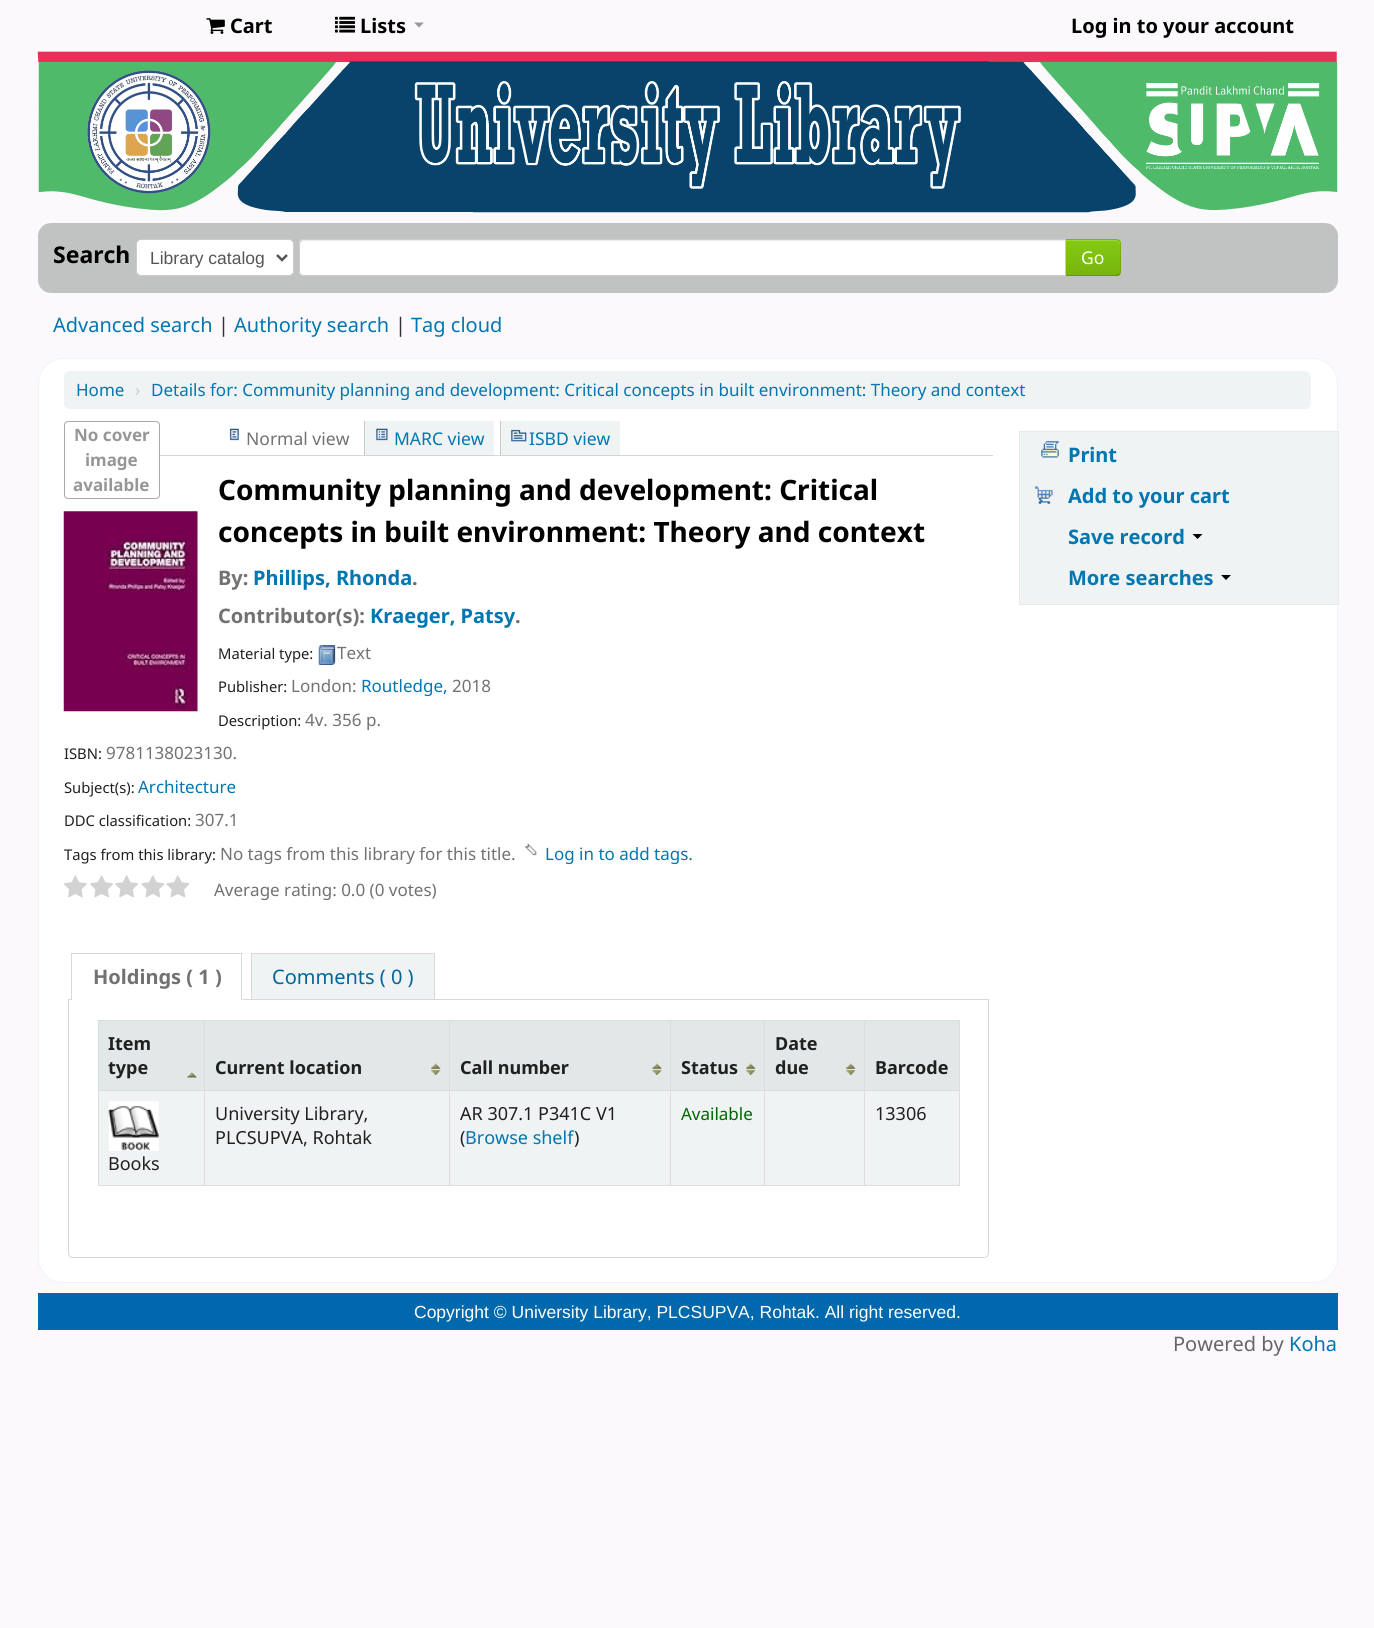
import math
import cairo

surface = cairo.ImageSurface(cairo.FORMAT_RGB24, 1374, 1628)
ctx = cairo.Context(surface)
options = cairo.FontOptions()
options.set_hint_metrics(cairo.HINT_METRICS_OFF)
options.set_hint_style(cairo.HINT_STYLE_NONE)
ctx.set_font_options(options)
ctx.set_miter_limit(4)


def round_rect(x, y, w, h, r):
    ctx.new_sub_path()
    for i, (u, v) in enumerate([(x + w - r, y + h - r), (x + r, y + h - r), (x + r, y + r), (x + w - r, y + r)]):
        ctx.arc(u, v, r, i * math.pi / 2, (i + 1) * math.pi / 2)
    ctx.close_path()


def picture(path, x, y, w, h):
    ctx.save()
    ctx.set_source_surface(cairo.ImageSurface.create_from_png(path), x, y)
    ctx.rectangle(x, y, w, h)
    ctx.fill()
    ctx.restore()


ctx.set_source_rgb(0.988, 0.976, 0.988)
ctx.paint()
picture("img1.png", 206, 18, 19, 16)
ctx.select_font_face("Noto Sans", cairo.FONT_SLANT_NORMAL, cairo.FONT_WEIGHT_BOLD)
ctx.set_font_size(20)
ctx.set_source_rgb(0, 0, 0)
ctx.move_to(230, 33)
ctx.show_text("Cart")
picture("img2.png", 335, 16, 20, 17)
ctx.move_to(360, 33)
ctx.show_text("Lists")
ctx.set_source_rgb(0.6, 0.6, 0.6)
ctx.new_path()
ctx.move_to(414, 22.5)
ctx.line_to(424, 22.5)
ctx.line_to(419, 27.5)
ctx.close_path()
ctx.fill()
ctx.set_source_rgb(0, 0, 0)
ctx.move_to(1071, 33)
ctx.show_text("Log in to your account")
picture("img3.png", 37, 51, 1301, 162)
ctx.set_source_rgb(0.757, 0.765, 0.765)
round_rect(38, 223, 1300, 70, 13)
ctx.fill()
ctx.set_font_size(23)
ctx.set_source_rgb(0, 0, 0)
ctx.move_to(53, 263)
ctx.show_text("Search")
ctx.set_source_rgb(1, 1, 1)
round_rect(136.5, 239.5, 157, 36, 4.5)
ctx.fill_preserve()
ctx.set_source_rgb(0.8, 0.8, 0.8)
ctx.set_line_width(1)
ctx.stroke()
ctx.new_path()
ctx.move_to(277, 255)
ctx.line_to(282, 260)
ctx.line_to(287, 255)
ctx.set_source_rgb(0.333, 0.333, 0.333)
ctx.set_line_width(2.5)
ctx.stroke()
ctx.select_font_face("Liberation Sans")
ctx.set_font_size(17.5)
ctx.move_to(150, 264)
ctx.show_text("Library catalog")
ctx.set_source_rgb(0.522, 0.792, 0.067)
ctx.new_path()
ctx.move_to(1065, 239)
ctx.line_to(1116, 239)
ctx.curve_to(1119, 239, 1121, 241, 1121, 244)
ctx.line_to(1121, 271)
ctx.curve_to(1121, 274, 1119, 276, 1116, 276)
ctx.line_to(1065, 276)
ctx.close_path()
ctx.fill()
ctx.save()
ctx.new_path()
ctx.move_to(1065, 239)
ctx.line_to(1116, 239)
ctx.curve_to(1119, 239, 1121, 241, 1121, 244)
ctx.line_to(1121, 271)
ctx.curve_to(1121, 274, 1119, 276, 1116, 276)
ctx.line_to(1065, 276)
ctx.close_path()
ctx.clip()
gradient = cairo.LinearGradient(1093, 240, 1093, 275)
gradient.add_color_stop_rgba(0, 0.522, 0.792, 0.067, 1)
gradient.add_color_stop_rgba(1, 0.467, 0.71, 0.059, 1)
ctx.set_source(gradient)
ctx.rectangle(1066, 240, 55, 35)
ctx.fill()
ctx.restore()
ctx.set_source_rgb(0.616, 0.835, 0.255)
ctx.new_path()
ctx.move_to(1066, 241)
ctx.line_to(1116, 241)
ctx.curve_to(1118, 241, 1120, 243, 1120, 245)
ctx.line_to(1120, 244)
ctx.curve_to(1120, 242, 1118, 240, 1116, 240)
ctx.line_to(1066, 240)
ctx.close_path()
ctx.fill()
ctx.set_source_rgba(0, 0, 0, 0.1)
ctx.new_path()
ctx.move_to(1120, 240)
ctx.curve_to(1119, 240, 1118, 239, 1116, 239)
ctx.line_to(1065, 239)
ctx.line_to(1066, 240)
ctx.line_to(1116, 240)
ctx.line_to(1119, 241)
ctx.close_path()
ctx.fill()
ctx.new_path()
ctx.move_to(1119.5, 240.5)
ctx.curve_to(1120.5, 241, 1121, 242.5, 1121, 244)
ctx.line_to(1121, 271)
ctx.curve_to(1121, 272.5, 1120.5, 274, 1119.5, 274.5)
ctx.line_to(1119, 274)
ctx.curve_to(1119.5, 273, 1120, 272, 1120, 271)
ctx.line_to(1120, 244)
ctx.curve_to(1120, 243, 1119.5, 242, 1119, 241)
ctx.close_path()
ctx.fill()
ctx.set_source_rgba(0, 0, 0, 0.25)
ctx.new_path()
ctx.move_to(1120, 275)
ctx.curve_to(1119, 276, 1118, 276, 1116, 276)
ctx.line_to(1065, 276)
ctx.line_to(1066, 275)
ctx.line_to(1116, 275)
ctx.line_to(1119, 274)
ctx.close_path()
ctx.fill()
ctx.set_source_rgb(1, 1, 1)
ctx.new_path()
ctx.move_to(304, 239)
ctx.line_to(1066, 239)
ctx.line_to(1066, 276)
ctx.line_to(304, 276)
ctx.curve_to(301, 276, 299, 274, 299, 271)
ctx.line_to(299, 244)
ctx.curve_to(299, 241, 301, 239, 304, 239)
ctx.close_path()
ctx.fill()
ctx.set_source_rgb(0.925, 0.925, 0.925)
ctx.new_path()
ctx.move_to(304, 241)
ctx.line_to(1065, 241)
ctx.line_to(1065, 240)
ctx.line_to(304, 240)
ctx.curve_to(302, 240, 300, 242, 300, 244)
ctx.line_to(300, 245)
ctx.curve_to(300, 243, 302, 241, 304, 241)
ctx.close_path()
ctx.fill()
ctx.new_path()
ctx.move_to(304, 239.5)
ctx.line_to(1065.5, 239.5)
ctx.line_to(1065.5, 275.5)
ctx.line_to(304, 275.5)
ctx.curve_to(301.5, 275.5, 299.5, 273.5, 299.5, 271)
ctx.line_to(299.5, 244)
ctx.curve_to(299.5, 241.5, 301.5, 239.5, 304, 239.5)
ctx.close_path()
ctx.set_source_rgb(0.8, 0.8, 0.8)
ctx.set_line_width(1)
ctx.stroke()
ctx.select_font_face("Noto Sans")
ctx.set_source_rgb(1, 1, 1)
ctx.move_to(1081, 264)
ctx.show_text("Go")
ctx.set_font_size(20)
ctx.set_source_rgb(0, 0.463, 0.698)
ctx.move_to(53, 332)
ctx.show_text("Advanced search")
ctx.set_source_rgb(0.2, 0.2, 0.2)
ctx.move_to(218, 332)
ctx.show_text("|")
ctx.set_source_rgb(0, 0.463, 0.698)
ctx.move_to(234, 332)
ctx.show_text("Authority search")
ctx.set_source_rgb(0.2, 0.2, 0.2)
ctx.move_to(395, 332)
ctx.show_text("|")
ctx.set_source_rgb(0, 0.463, 0.698)
ctx.move_to(411, 332)
ctx.show_text("Tag cloud")
ctx.set_source_rgb(1, 1, 1)
round_rect(38.5, 358.5, 1299, 924, 24.5)
ctx.fill_preserve()
ctx.set_source_rgb(0.941, 0.953, 0.953)
ctx.stroke()
round_rect(64, 371, 1247, 38, 6)
ctx.fill()
ctx.set_font_size(17)
ctx.set_source_rgb(0, 0.463, 0.698)
ctx.move_to(76, 396)
ctx.show_text("Home")
ctx.set_source_rgb(0.8, 0.8, 0.8)
ctx.move_to(135, 396)
ctx.show_text("›")
ctx.set_source_rgb(0, 0.463, 0.698)
ctx.move_to(151, 396)
ctx.show_text("Details for: Community planning and development: Critical concepts in built environment: Theory and context")
round_rect(64.5, 421.5, 95, 77, 3.5)
ctx.set_source_rgb(0.667, 0.667, 0.667)
ctx.stroke()
ctx.select_font_face("Noto Sans", cairo.FONT_SLANT_NORMAL, cairo.FONT_WEIGHT_BOLD)
ctx.set_source_rgb(0.592, 0.592, 0.592)
ctx.move_to(74, 441)
ctx.show_text("No cover")
ctx.move_to(85, 466)
ctx.show_text("image")
ctx.move_to(73, 491)
ctx.show_text("available")
picture("img4.png", 63, 511, 135, 201)
ctx.set_source_rgb(0.839, 0.839, 0.839)
ctx.rectangle(160, 455, 833, 1)
ctx.fill()
picture("img5.png", 229, 428, 10, 13)
ctx.select_font_face("Noto Sans")
ctx.set_font_size(17.5)
ctx.set_source_rgb(0.447, 0.447, 0.447)
ctx.move_to(246, 445)
ctx.show_text("Normal view")
ctx.set_source_rgb(0.941, 0.953, 0.953)
ctx.rectangle(365, 421, 129, 34)
ctx.fill()
ctx.set_source_rgb(0.788, 0.788, 0.788)
ctx.rectangle(364, 421, 1, 34)
ctx.fill()
picture("img6.png", 376, 428, 12, 13)
ctx.set_source_rgb(0, 0.463, 0.698)
ctx.move_to(394, 445)
ctx.show_text("MARC view")
ctx.set_source_rgb(0.941, 0.953, 0.953)
ctx.rectangle(501, 421, 119, 34)
ctx.fill()
ctx.set_source_rgb(0.788, 0.788, 0.788)
ctx.rectangle(500, 421, 1, 34)
ctx.fill()
picture("img7.png", 511, 429, 16, 13)
ctx.set_source_rgb(0, 0.463, 0.698)
ctx.move_to(529, 445)
ctx.show_text("ISBD view")
ctx.select_font_face("Noto Sans", cairo.FONT_SLANT_NORMAL, cairo.FONT_WEIGHT_BOLD)
ctx.set_font_size(28)
ctx.set_source_rgb(0, 0, 0)
ctx.move_to(218, 500)
ctx.show_text("Community planning and development: Critical")
ctx.move_to(218, 542)
ctx.show_text("concepts in built environment: Theory and context")
ctx.set_font_size(20)
ctx.set_source_rgb(0.447, 0.447, 0.447)
ctx.move_to(218, 585)
ctx.show_text("By:")
ctx.set_source_rgb(0, 0.463, 0.698)
ctx.move_to(253, 585)
ctx.show_text("Phillips, Rhonda")
ctx.set_source_rgb(0.447, 0.447, 0.447)
ctx.move_to(412, 585)
ctx.show_text(".")
ctx.move_to(218, 623)
ctx.show_text("Contributor(s):")
ctx.set_source_rgb(0, 0.463, 0.698)
ctx.move_to(370, 623)
ctx.show_text("Kraeger, Patsy")
ctx.set_source_rgb(0.447, 0.447, 0.447)
ctx.move_to(515, 623)
ctx.show_text(".")
ctx.select_font_face("Noto Sans")
ctx.set_font_size(14.75)
ctx.set_source_rgb(0.125, 0.125, 0.125)
ctx.move_to(218, 659)
ctx.show_text("Material type:")
picture("img8.png", 318, 645, 18, 20)
ctx.set_font_size(17)
ctx.set_source_rgb(0.447, 0.447, 0.447)
ctx.move_to(337, 659)
ctx.show_text("Text")
ctx.set_font_size(14.75)
ctx.set_source_rgb(0.125, 0.125, 0.125)
ctx.move_to(218, 692)
ctx.show_text("Publisher:")
ctx.set_font_size(17)
ctx.set_source_rgb(0.447, 0.447, 0.447)
ctx.move_to(291, 692)
ctx.show_text("London:")
ctx.set_source_rgb(0, 0.463, 0.698)
ctx.move_to(361, 692)
ctx.show_text("Routledge,")
ctx.set_source_rgb(0.447, 0.447, 0.447)
ctx.move_to(452, 692)
ctx.show_text("2018")
ctx.set_font_size(14.75)
ctx.set_source_rgb(0.125, 0.125, 0.125)
ctx.move_to(218, 726)
ctx.show_text("Description:")
ctx.set_font_size(17)
ctx.set_source_rgb(0.447, 0.447, 0.447)
ctx.move_to(305, 726)
ctx.show_text("4v. 356 p.")
ctx.set_font_size(14.75)
ctx.set_source_rgb(0.125, 0.125, 0.125)
ctx.move_to(64, 759)
ctx.show_text("ISBN:")
ctx.set_font_size(17)
ctx.set_source_rgb(0.447, 0.447, 0.447)
ctx.move_to(106, 759)
ctx.show_text("9781138023130.")
ctx.set_font_size(14.75)
ctx.set_source_rgb(0.125, 0.125, 0.125)
ctx.move_to(64, 793)
ctx.show_text("Subject(s):")
ctx.set_font_size(17)
ctx.set_source_rgb(0, 0.463, 0.698)
ctx.move_to(138, 793)
ctx.show_text("Architecture")
ctx.set_font_size(14.75)
ctx.set_source_rgb(0.125, 0.125, 0.125)
ctx.move_to(64, 826)
ctx.show_text("DDC classification:")
ctx.set_font_size(17)
ctx.set_source_rgb(0.447, 0.447, 0.447)
ctx.move_to(195, 826)
ctx.show_text("307.1")
ctx.set_font_size(14.75)
ctx.set_source_rgb(0.125, 0.125, 0.125)
ctx.move_to(64, 860)
ctx.show_text("Tags from this library:")
ctx.set_font_size(17)
ctx.set_source_rgb(0.447, 0.447, 0.447)
ctx.move_to(220, 860)
ctx.show_text("No tags from this library for this title.")
picture("img9.png", 524, 843, 13, 13)
ctx.set_source_rgb(0, 0.463, 0.698)
ctx.move_to(545, 860)
ctx.show_text("Log in to add tags.")
picture("img10.png", 63, 875, 24, 23)
picture("img11.png", 90, 875, 23, 23)
picture("img11.png", 115, 875, 23, 23)
picture("img12.png", 141, 875, 24, 23)
picture("img12.png", 166, 875, 24, 23)
ctx.set_source_rgb(0.447, 0.447, 0.447)
ctx.move_to(214, 896)
ctx.show_text("Average rating: 0.0 (0 votes)")
ctx.new_path()
ctx.move_to(68.5, 999.5)
ctx.line_to(988.5, 999.5)
ctx.line_to(988.5, 1253)
ctx.curve_to(988.5, 1255.5, 986.5, 1257.5, 984, 1257.5)
ctx.line_to(73, 1257.5)
ctx.curve_to(70.5, 1257.5, 68.5, 1255.5, 68.5, 1253)
ctx.close_path()
ctx.set_source_rgb(0.847, 0.847, 0.847)
ctx.stroke()
ctx.set_source_rgb(1, 1, 1)
ctx.rectangle(72, 999, 171, 1)
ctx.fill()
ctx.set_source_rgb(0.847, 0.847, 0.847)
ctx.rectangle(71, 953, 172, 1)
ctx.fill()
ctx.rectangle(241, 953, 1, 47)
ctx.fill()
ctx.rectangle(71, 953, 1, 47)
ctx.fill()
ctx.select_font_face("Noto Sans", cairo.FONT_SLANT_NORMAL, cairo.FONT_WEIGHT_BOLD)
ctx.set_font_size(20)
ctx.set_source_rgb(0.447, 0.447, 0.447)
ctx.move_to(93, 984)
ctx.show_text("Holdings ( 1 )")
ctx.set_source_rgb(0.941, 0.953, 0.953)
ctx.rectangle(252, 954, 182, 45)
ctx.fill()
ctx.set_source_rgb(0.847, 0.847, 0.847)
ctx.rectangle(251, 953, 184, 1)
ctx.fill()
ctx.rectangle(434, 953, 1, 46)
ctx.fill()
ctx.rectangle(251, 953, 1, 46)
ctx.fill()
ctx.select_font_face("Noto Sans")
ctx.set_source_rgb(0, 0.4, 0.6)
ctx.move_to(272, 984)
ctx.show_text("Comments ( 0 )")
ctx.set_source_rgb(0.867, 0.867, 0.867)
ctx.rectangle(98, 1020, 862, 1)
ctx.fill()
ctx.rectangle(959, 1020, 1, 166)
ctx.fill()
ctx.rectangle(98, 1185, 862, 1)
ctx.fill()
ctx.set_source_rgb(0.886, 0.91, 0.91)
ctx.rectangle(99, 1021, 105, 69)
ctx.fill()
picture("img13.png", 187, 1072, 10, 6)
ctx.set_source_rgb(0.867, 0.867, 0.867)
ctx.rectangle(98, 1021, 1, 69)
ctx.fill()
ctx.select_font_face("Noto Sans", cairo.FONT_SLANT_NORMAL, cairo.FONT_WEIGHT_BOLD)
ctx.set_font_size(18)
ctx.set_source_rgb(0.125, 0.125, 0.125)
ctx.move_to(108, 1050)
ctx.show_text("Item")
ctx.move_to(108, 1074)
ctx.show_text("type")
ctx.set_source_rgb(0.886, 0.91, 0.91)
ctx.rectangle(205, 1021, 244, 69)
ctx.fill()
picture("img14.png", 431, 1063, 10, 12)
ctx.set_source_rgb(0.867, 0.867, 0.867)
ctx.rectangle(204, 1021, 1, 69)
ctx.fill()
ctx.set_source_rgb(0.125, 0.125, 0.125)
ctx.move_to(215, 1074)
ctx.show_text("Current location")
ctx.set_source_rgb(0.886, 0.91, 0.91)
ctx.rectangle(450, 1021, 220, 69)
ctx.fill()
picture("img15.png", 652, 1063, 10, 12)
ctx.set_source_rgb(0.867, 0.867, 0.867)
ctx.rectangle(449, 1021, 1, 69)
ctx.fill()
ctx.set_source_rgb(0.125, 0.125, 0.125)
ctx.move_to(460, 1074)
ctx.show_text("Call number")
ctx.set_source_rgb(0.886, 0.91, 0.91)
ctx.rectangle(671, 1021, 93, 69)
ctx.fill()
picture("img14.png", 746, 1063, 10, 12)
ctx.set_source_rgb(0.867, 0.867, 0.867)
ctx.rectangle(670, 1021, 1, 69)
ctx.fill()
ctx.set_source_rgb(0.125, 0.125, 0.125)
ctx.move_to(681, 1074)
ctx.show_text("Status")
ctx.set_source_rgb(0.886, 0.91, 0.91)
ctx.rectangle(765, 1021, 99, 69)
ctx.fill()
picture("img16.png", 846, 1063, 10, 12)
ctx.set_source_rgb(0.867, 0.867, 0.867)
ctx.rectangle(764, 1021, 1, 69)
ctx.fill()
ctx.set_source_rgb(0.125, 0.125, 0.125)
ctx.move_to(775, 1050)
ctx.show_text("Date")
ctx.move_to(775, 1074)
ctx.show_text("due")
ctx.set_source_rgb(0.886, 0.91, 0.91)
ctx.rectangle(865, 1021, 94, 69)
ctx.fill()
ctx.set_source_rgb(0.867, 0.867, 0.867)
ctx.rectangle(864, 1021, 1, 69)
ctx.fill()
ctx.set_source_rgb(0.125, 0.125, 0.125)
ctx.move_to(875, 1074)
ctx.show_text("Barcode")
ctx.set_source_rgb(0.941, 0.953, 0.953)
ctx.rectangle(205, 1091, 244, 94)
ctx.fill()
ctx.set_source_rgb(0.867, 0.867, 0.867)
ctx.rectangle(98, 1090, 861, 1)
ctx.fill()
ctx.rectangle(204, 1090, 1, 95)
ctx.fill()
ctx.select_font_face("Noto Sans")
ctx.set_source_rgb(0.125, 0.125, 0.125)
ctx.move_to(215, 1120)
ctx.show_text("University Library,")
ctx.move_to(215, 1144)
ctx.show_text("PLCSUPVA, Rohtak")
ctx.set_source_rgb(0.941, 0.953, 0.953)
ctx.rectangle(450, 1091, 220, 94)
ctx.fill()
ctx.set_source_rgb(0.867, 0.867, 0.867)
ctx.rectangle(449, 1090, 1, 95)
ctx.fill()
ctx.set_source_rgb(0.125, 0.125, 0.125)
ctx.move_to(460, 1120)
ctx.show_text("AR 307.1 P341C V1")
ctx.move_to(460, 1144)
ctx.show_text("(")
ctx.set_source_rgb(0, 0.463, 0.698)
ctx.move_to(465, 1144)
ctx.show_text("Browse shelf")
ctx.set_source_rgb(0.125, 0.125, 0.125)
ctx.move_to(574, 1144)
ctx.show_text(")")
ctx.set_source_rgb(0.941, 0.953, 0.953)
ctx.rectangle(671, 1091, 93, 94)
ctx.fill()
ctx.set_source_rgb(0.867, 0.867, 0.867)
ctx.rectangle(670, 1090, 1, 95)
ctx.fill()
ctx.set_font_size(17)
ctx.set_source_rgb(0, 0.4, 0)
ctx.move_to(681, 1120)
ctx.show_text("Available")
ctx.set_source_rgb(0.941, 0.953, 0.953)
ctx.rectangle(765, 1091, 99, 94)
ctx.fill()
ctx.set_source_rgb(0.867, 0.867, 0.867)
ctx.rectangle(764, 1090, 1, 95)
ctx.fill()
ctx.set_source_rgb(0.941, 0.953, 0.953)
ctx.rectangle(865, 1091, 94, 94)
ctx.fill()
ctx.set_source_rgb(0.867, 0.867, 0.867)
ctx.rectangle(864, 1090, 1, 95)
ctx.fill()
ctx.set_font_size(18)
ctx.set_source_rgb(0.125, 0.125, 0.125)
ctx.move_to(875, 1120)
ctx.show_text("13306")
ctx.set_source_rgb(0.941, 0.953, 0.953)
ctx.rectangle(99, 1091, 105, 94)
ctx.fill()
ctx.set_source_rgb(0.867, 0.867, 0.867)
ctx.rectangle(98, 1090, 1, 95)
ctx.fill()
picture("img17.png", 108, 1101, 51, 50)
ctx.set_source_rgb(0.125, 0.125, 0.125)
ctx.move_to(108, 1170)
ctx.show_text("Books")
ctx.set_source_rgb(0.941, 0.953, 0.953)
ctx.rectangle(1020, 432, 317, 172)
ctx.fill()
ctx.rectangle(1019.5, 431.5, 319, 173)
ctx.set_source_rgb(0.91, 0.91, 0.91)
ctx.stroke()
picture("img18.png", 1041, 441, 18, 17)
ctx.select_font_face("Noto Sans", cairo.FONT_SLANT_NORMAL, cairo.FONT_WEIGHT_BOLD)
ctx.set_font_size(20)
ctx.set_source_rgb(0, 0.463, 0.698)
ctx.move_to(1068, 462)
ctx.show_text("Print")
picture("img19.png", 1034, 486, 19, 18)
ctx.move_to(1068, 503)
ctx.show_text("Add to your cart")
ctx.move_to(1068, 544)
ctx.show_text("Save record")
ctx.set_source_rgb(0, 0, 0)
ctx.new_path()
ctx.move_to(1192.5, 534)
ctx.line_to(1202.5, 534)
ctx.line_to(1197.5, 539)
ctx.close_path()
ctx.fill()
ctx.set_source_rgb(0, 0.463, 0.698)
ctx.move_to(1068, 585)
ctx.show_text("More searches")
ctx.set_source_rgb(0, 0, 0)
ctx.new_path()
ctx.move_to(1221, 575)
ctx.line_to(1231, 575)
ctx.line_to(1226, 580)
ctx.close_path()
ctx.fill()
ctx.set_source_rgb(0, 0.408, 0.675)
ctx.rectangle(38, 1293, 1300, 37)
ctx.fill()
ctx.select_font_face("Liberation Sans")
ctx.set_font_size(17.5)
ctx.set_source_rgb(1, 1, 1)
ctx.move_to(414, 1318)
ctx.show_text("Copyright © University Library, PLCSUPVA, Rohtak. All right reserved.")
ctx.select_font_face("Noto Sans")
ctx.set_font_size(20)
ctx.set_source_rgb(0.4, 0.4, 0.4)
ctx.move_to(1173, 1351)
ctx.show_text("Powered by")
ctx.set_source_rgb(0, 0.463, 0.698)
ctx.move_to(1289, 1351)
ctx.show_text("Koha")
surface.write_to_png("page.png")
